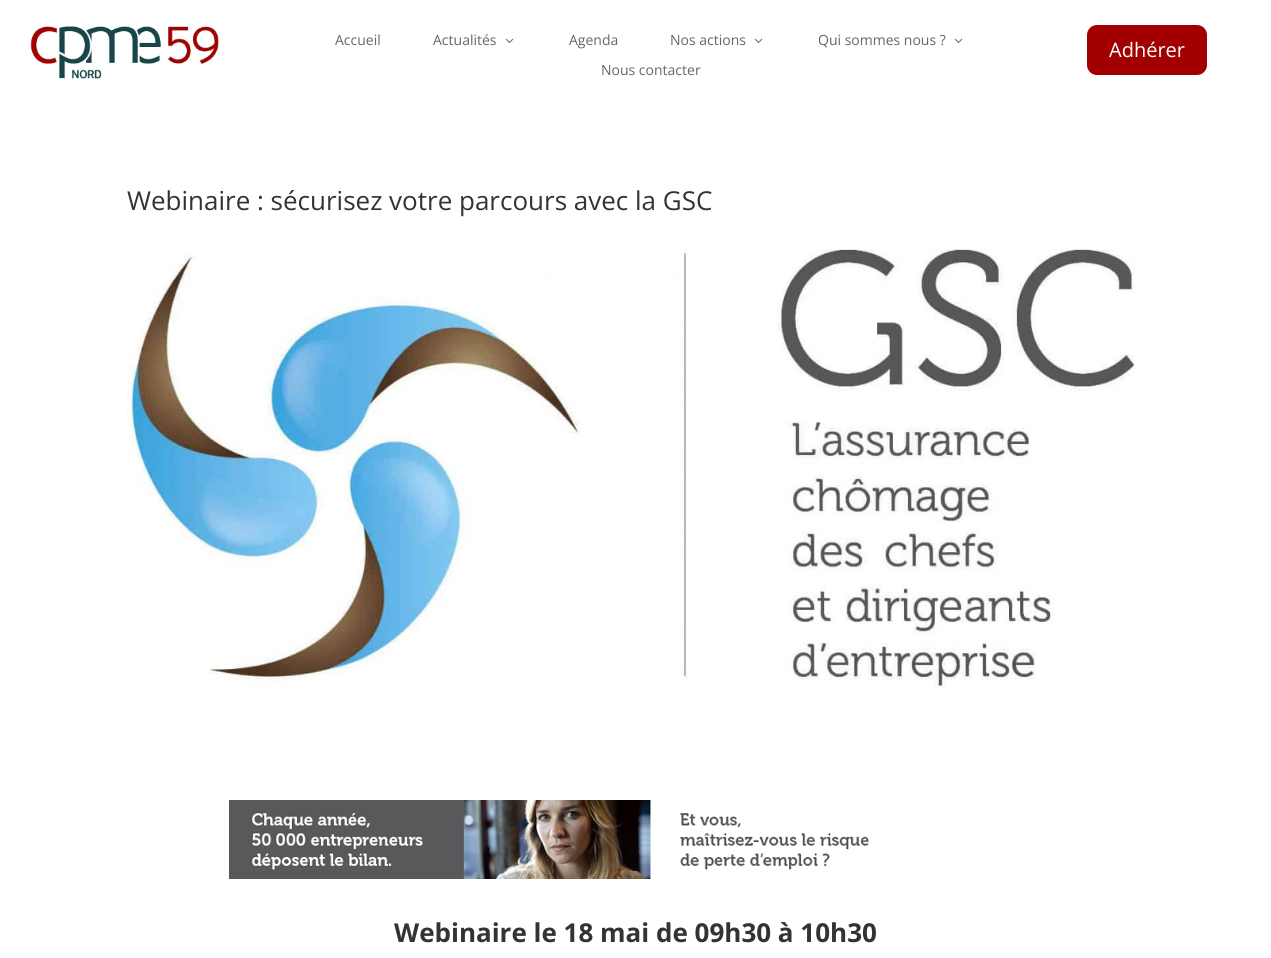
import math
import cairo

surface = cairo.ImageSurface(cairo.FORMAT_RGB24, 1271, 958)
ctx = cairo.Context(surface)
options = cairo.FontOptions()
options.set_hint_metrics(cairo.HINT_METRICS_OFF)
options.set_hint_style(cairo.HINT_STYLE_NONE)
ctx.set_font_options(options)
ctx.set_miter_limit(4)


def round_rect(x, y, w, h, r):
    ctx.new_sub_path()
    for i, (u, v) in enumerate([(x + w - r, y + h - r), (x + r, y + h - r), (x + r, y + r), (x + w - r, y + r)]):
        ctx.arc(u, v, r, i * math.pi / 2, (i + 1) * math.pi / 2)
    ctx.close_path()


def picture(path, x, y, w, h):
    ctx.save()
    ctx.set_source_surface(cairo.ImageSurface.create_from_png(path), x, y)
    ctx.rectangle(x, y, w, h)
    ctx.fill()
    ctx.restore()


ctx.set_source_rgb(1, 1, 1)
ctx.paint()
picture("img1.png", 30, 25, 189, 55)
ctx.select_font_face("Open Sans")
ctx.set_font_size(14)
ctx.set_source_rgb(0.4, 0.4, 0.4)
ctx.move_to(335, 45)
ctx.show_text("Accueil")
ctx.move_to(433, 45)
ctx.show_text("Actualités")
picture("img2.png", 505, 38, 9, 5)
ctx.move_to(569, 45)
ctx.show_text("Agenda")
ctx.move_to(670, 45)
ctx.show_text("Nos actions")
picture("img2.png", 754, 38, 9, 5)
ctx.move_to(818, 45)
ctx.show_text("Qui sommes nous ?")
picture("img2.png", 954, 38, 9, 5)
ctx.move_to(601, 75)
ctx.show_text("Nous contacter")
ctx.set_source_rgb(0.635, 0, 0)
round_rect(1088, 26, 118, 48, 9)
ctx.fill_preserve()
ctx.stroke()
ctx.set_font_size(20)
ctx.set_source_rgb(1, 1, 1)
ctx.move_to(1109, 57)
ctx.show_text("Adhérer")
ctx.set_font_size(26)
ctx.set_source_rgb(0.2, 0.2, 0.2)
ctx.move_to(127, 210)
ctx.show_text("Webinaire : sécurisez votre parcours avec la GSC")
picture("img3.png", 127, 249, 1010, 439)
picture("img4.png", 229, 800, 640, 79)
ctx.select_font_face("Open Sans", cairo.FONT_SLANT_NORMAL, cairo.FONT_WEIGHT_BOLD)
ctx.move_to(394, 942)
ctx.show_text("Webinaire le 18 mai de 09h30 à 10h30")
surface.write_to_png("page.png")
